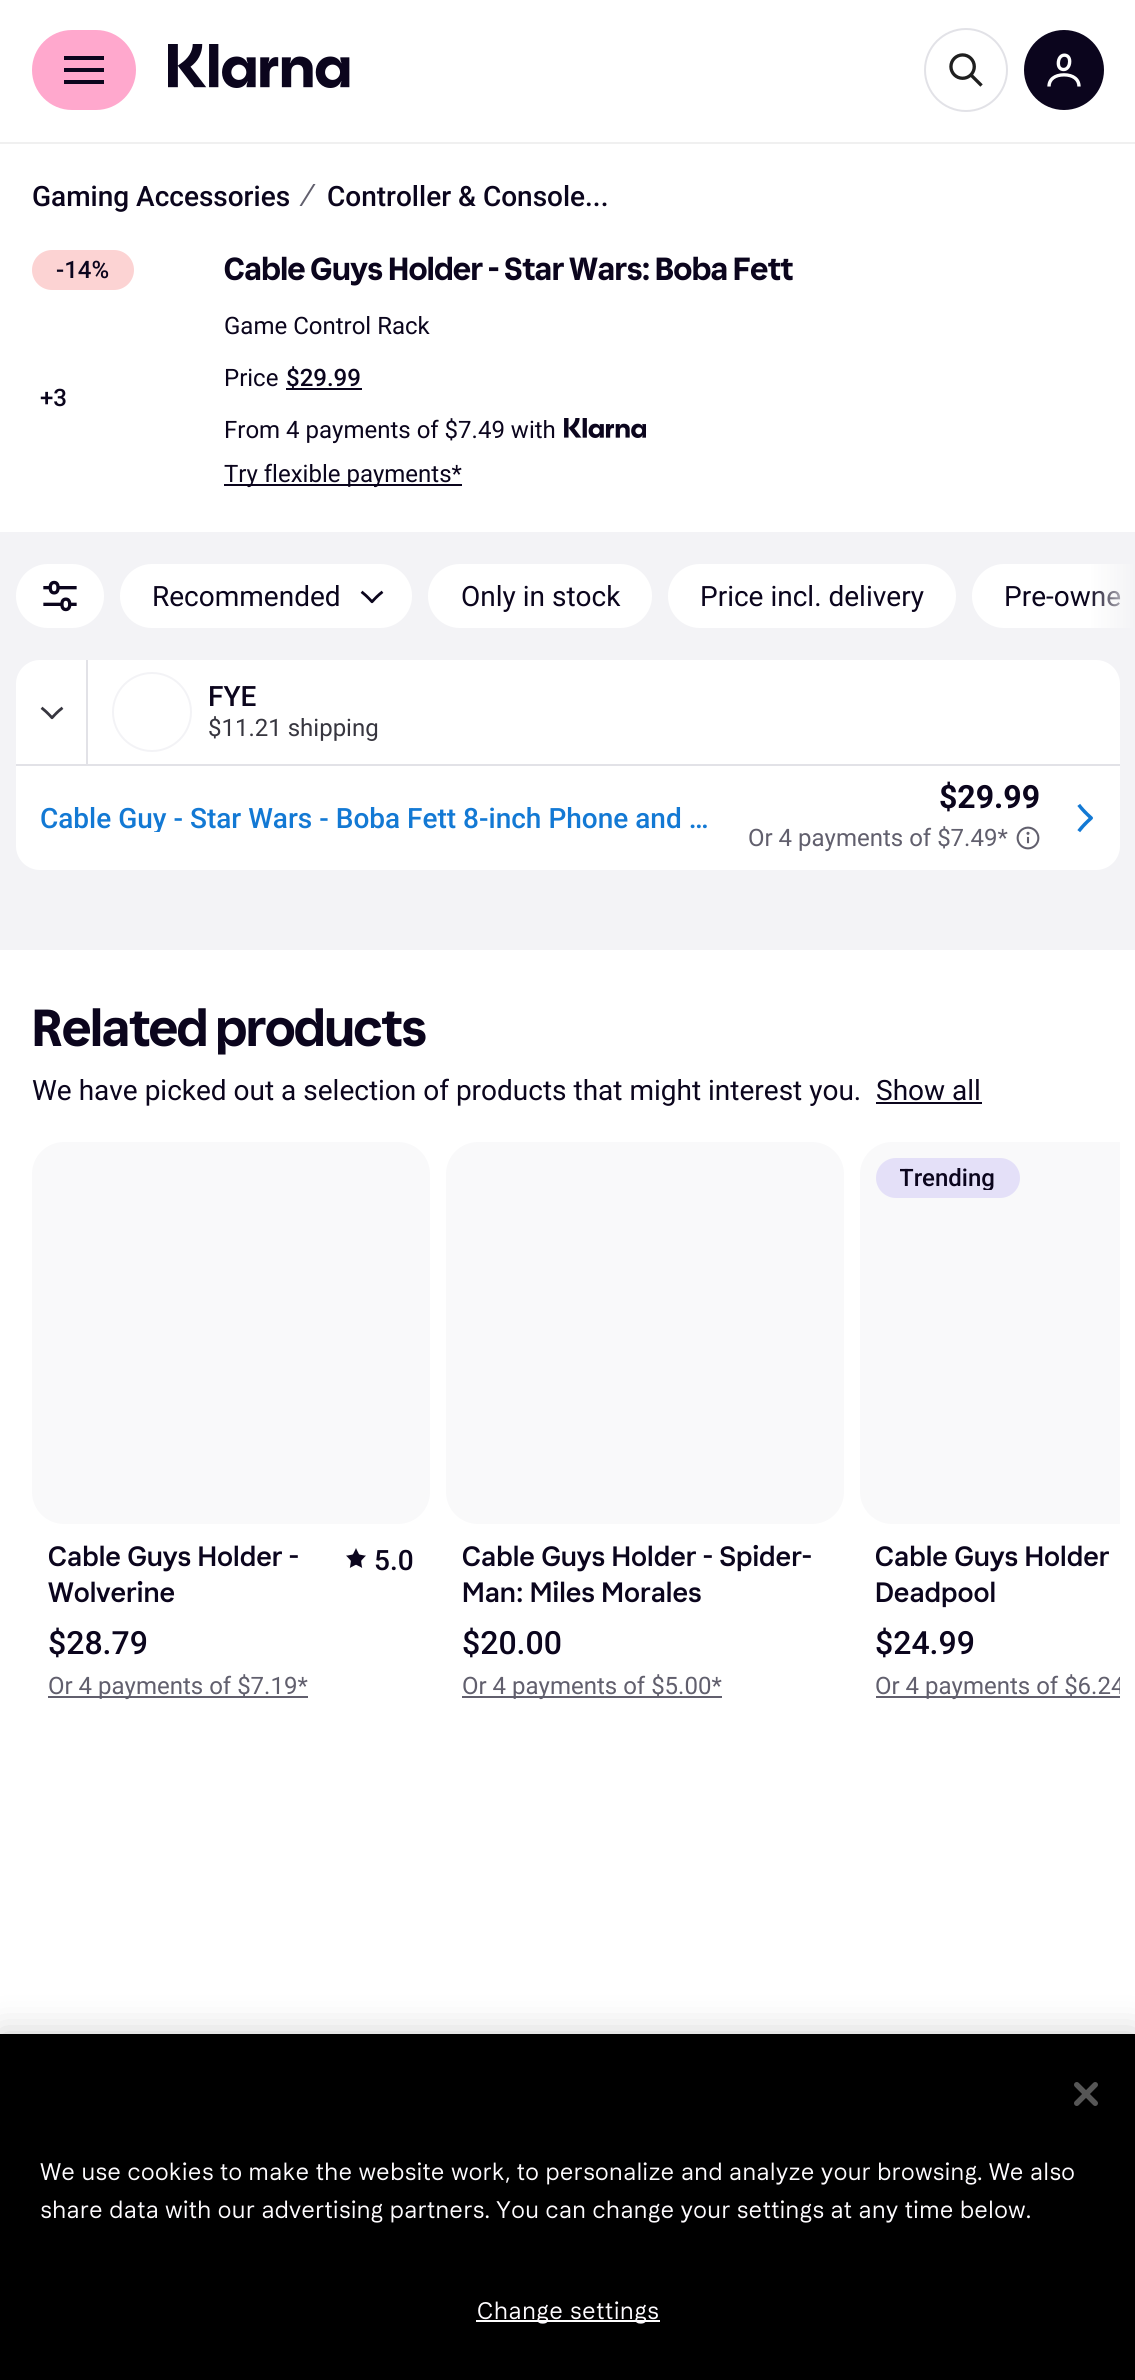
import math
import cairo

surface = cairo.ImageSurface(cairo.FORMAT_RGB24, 1135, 2380)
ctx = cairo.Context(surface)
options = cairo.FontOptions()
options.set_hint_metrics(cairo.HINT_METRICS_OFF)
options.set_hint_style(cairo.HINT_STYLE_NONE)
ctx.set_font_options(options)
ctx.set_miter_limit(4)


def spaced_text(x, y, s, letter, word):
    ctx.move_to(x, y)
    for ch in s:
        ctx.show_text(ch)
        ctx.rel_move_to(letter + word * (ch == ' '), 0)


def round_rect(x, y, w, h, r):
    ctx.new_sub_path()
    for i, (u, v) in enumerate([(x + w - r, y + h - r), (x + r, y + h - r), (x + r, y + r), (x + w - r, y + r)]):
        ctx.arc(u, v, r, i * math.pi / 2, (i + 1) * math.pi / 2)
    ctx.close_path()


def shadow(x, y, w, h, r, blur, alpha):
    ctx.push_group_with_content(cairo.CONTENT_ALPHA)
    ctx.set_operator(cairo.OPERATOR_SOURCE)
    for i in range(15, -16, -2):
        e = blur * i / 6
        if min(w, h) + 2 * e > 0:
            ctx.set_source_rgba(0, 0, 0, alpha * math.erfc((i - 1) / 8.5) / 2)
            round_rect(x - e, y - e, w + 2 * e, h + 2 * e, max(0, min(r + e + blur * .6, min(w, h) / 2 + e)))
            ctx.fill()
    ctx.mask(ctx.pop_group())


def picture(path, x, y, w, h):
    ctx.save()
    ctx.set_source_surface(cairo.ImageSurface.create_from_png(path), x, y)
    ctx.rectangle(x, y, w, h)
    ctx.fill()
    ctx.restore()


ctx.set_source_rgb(1, 1, 1)
ctx.paint()
ctx.set_source_rgb(0.941, 0.941, 0.941)
ctx.rectangle(0, 142, 1135, 2)
ctx.fill()
ctx.set_source_rgb(1, 0.659, 0.804)
round_rect(32, 30, 104, 80, 40)
ctx.fill()
ctx.set_source_rgb(0.043, 0.02, 0.114)
ctx.set_fill_rule(cairo.FILL_RULE_EVEN_ODD)
ctx.new_path()
ctx.move_to(104, 60)
ctx.line_to(64, 60)
ctx.line_to(64, 56)
ctx.line_to(104, 56)
ctx.close_path()
ctx.move_to(104, 84)
ctx.line_to(64, 84)
ctx.line_to(64, 80)
ctx.line_to(104, 80)
ctx.close_path()
ctx.move_to(104, 72)
ctx.line_to(64, 72)
ctx.line_to(64, 68)
ctx.line_to(104, 68)
ctx.close_path()
ctx.fill()
picture("img1.png", 168, 44, 182, 44)
ctx.arc(966, 70, 41, 0, 2 * math.pi)
ctx.set_source_rgb(0.886, 0.886, 0.906)
ctx.stroke()
picture("img2.png", 949, 53, 34, 34)
ctx.set_source_rgb(0.043, 0.02, 0.114)
ctx.arc(1064, 70, 40, 0, 2 * math.pi)
ctx.fill()
picture("img3.png", 1047, 53, 34, 34)
ctx.select_font_face("Roboto Medium")
ctx.set_font_size(28)
ctx.move_to(32, 206)
ctx.show_text("Gaming Accessories")
ctx.select_font_face("Liberation Sans")
ctx.set_font_size(32)
ctx.set_source_rgb(0.38, 0.373, 0.427)
ctx.move_to(306, 206)
ctx.show_text("∕")
ctx.select_font_face("Roboto Medium")
ctx.set_font_size(28)
ctx.set_source_rgb(0.043, 0.02, 0.114)
ctx.move_to(327, 206)
ctx.show_text("Controller & Console...")
ctx.set_source_rgb(0.988, 0.827, 0.827)
round_rect(32, 250, 102, 40, 20)
ctx.fill()
ctx.set_font_size(24)
ctx.set_source_rgb(0.043, 0.02, 0.114)
ctx.move_to(56, 278)
ctx.show_text("-14%")
ctx.move_to(40, 406)
ctx.show_text("+3")
ctx.select_font_face("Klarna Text", cairo.FONT_SLANT_NORMAL, cairo.FONT_WEIGHT_BOLD)
ctx.set_font_size(32)
ctx.move_to(224, 280)
ctx.show_text("Cable Guys Holder - Star Wars: Boba Fett")
ctx.select_font_face("Roboto")
ctx.set_font_size(24)
ctx.move_to(224, 334)
ctx.show_text("Game Control Rack")
ctx.move_to(224, 386)
ctx.show_text("Price")
ctx.rectangle(286, 388, 76, 2)
ctx.fill()
ctx.select_font_face("Roboto Medium")
ctx.move_to(286, 386)
ctx.show_text("$29.99")
ctx.select_font_face("Roboto")
ctx.move_to(224, 438)
ctx.show_text("From 4 payments of $7.49 with")
picture("img4.png", 564, 418, 82, 20)
ctx.rectangle(224, 484, 238, 2)
ctx.fill()
ctx.move_to(224, 482)
ctx.show_text("Try flexible payments*")
ctx.set_source_rgb(0.953, 0.953, 0.961)
ctx.rectangle(0, 532, 1135, 418)
ctx.fill()
ctx.set_source_rgb(1, 1, 1)
ctx.new_path()
ctx.move_to(1004, 564)
ctx.line_to(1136, 564)
ctx.line_to(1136, 628)
ctx.line_to(1004, 628)
ctx.curve_to(986.5, 628, 972, 613.5, 972, 596)
ctx.curve_to(972, 578.5, 986.5, 564, 1004, 564)
ctx.close_path()
ctx.fill()
ctx.set_font_size(28)
ctx.set_source_rgb(0.043, 0.02, 0.114)
ctx.move_to(1004, 606)
ctx.show_text("Pre-owne")
gradient = cairo.LinearGradient(1088, 596, 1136, 596)
gradient.add_color_stop_rgba(0, 0.953, 0.953, 0.961, 0)
gradient.add_color_stop_rgba(1, 0.953, 0.953, 0.961, 1)
ctx.set_source(gradient)
ctx.rectangle(1089, 564, 46, 64)
ctx.fill()
ctx.set_source_rgb(1, 1, 1)
round_rect(16, 564, 88, 64, 32)
ctx.fill()
picture("img5.png", 43, 580, 34, 32)
round_rect(120, 564, 292, 64, 32)
ctx.fill()
ctx.set_source_rgb(0.043, 0.02, 0.114)
ctx.move_to(152, 606)
ctx.show_text("Recommended")
picture("img6.png", 360, 590, 24, 14)
ctx.set_source_rgb(1, 1, 1)
round_rect(428, 564, 224, 64, 32)
ctx.fill()
ctx.set_source_rgb(0.043, 0.02, 0.114)
ctx.move_to(461, 606)
ctx.show_text("Only in stock")
ctx.set_source_rgb(1, 1, 1)
round_rect(668, 564, 288, 64, 32)
ctx.fill()
ctx.set_source_rgb(0.043, 0.02, 0.114)
ctx.move_to(700, 606)
ctx.show_text("Price incl. delivery")
ctx.set_source_rgb(1, 1, 1)
round_rect(16, 660, 1104, 210, 24)
ctx.fill()
ctx.set_source_rgb(0.886, 0.886, 0.906)
ctx.rectangle(16, 764, 1104, 2)
ctx.fill()
ctx.rectangle(86, 660, 2, 104)
ctx.fill()
picture("img7.png", 40, 706, 24, 14)
ctx.arc(152, 712, 39, 0, 2 * math.pi)
ctx.set_source_rgb(0.953, 0.953, 0.961)
ctx.stroke()
ctx.select_font_face("Roboto Medium")
ctx.set_source_rgb(0.043, 0.02, 0.114)
ctx.move_to(208, 706)
ctx.show_text("FYE")
ctx.select_font_face("Roboto")
ctx.set_font_size(24)
ctx.set_source_rgb(0.216, 0.212, 0.247)
ctx.move_to(208, 736)
ctx.show_text("$11.21 shipping")
ctx.save()
ctx.set_fill_rule(cairo.FILL_RULE_WINDING)
ctx.rectangle(40, 804, 684, 28)
ctx.clip()
ctx.select_font_face("Roboto Medium")
ctx.set_font_size(28)
ctx.set_source_rgb(0.075, 0.475, 0.831)
ctx.move_to(40, 828)
ctx.show_text("Cable Guy - Star Wars - Boba Fett 8-inch Phone and …")
ctx.restore()
ctx.select_font_face("Roboto", cairo.FONT_SLANT_NORMAL, cairo.FONT_WEIGHT_BOLD)
ctx.set_font_size(32)
ctx.set_source_rgb(0.043, 0.02, 0.114)
ctx.move_to(939, 808)
ctx.show_text("$29.99")
ctx.select_font_face("Roboto")
ctx.set_font_size(24)
ctx.set_source_rgb(0.38, 0.373, 0.427)
ctx.move_to(748, 846)
ctx.show_text("Or 4 payments of $7.49*")
picture("img8.png", 1016, 826, 24, 24)
picture("img9.png", 1077, 803, 16, 30)
ctx.select_font_face("Klarna Text", cairo.FONT_SLANT_NORMAL, cairo.FONT_WEIGHT_BOLD)
ctx.set_font_size(52)
ctx.set_source_rgb(0.043, 0.02, 0.114)
spaced_text(32, 1046, "Related products", -0.4, 0)
ctx.select_font_face("Roboto")
ctx.set_font_size(28)
ctx.move_to(32, 1100)
ctx.show_text("We have picked out a selection of products that might interest you.")
ctx.move_to(876, 1100)
ctx.show_text("Show all")
ctx.rectangle(876, 1102, 106, 2)
ctx.fill()
ctx.set_source_rgb(0.973, 0.973, 0.98)
round_rect(32, 1142, 398, 382, 32)
ctx.fill()
ctx.select_font_face("Klarna Text Medium")
ctx.set_source_rgb(0.043, 0.02, 0.114)
ctx.move_to(48, 1566)
ctx.show_text("Cable Guys Holder -")
ctx.move_to(48, 1602)
ctx.show_text("Wolverine")
picture("img10.png", 346, 1548, 20, 20)
ctx.select_font_face("Roboto Medium")
ctx.move_to(374, 1570)
ctx.show_text("5.0")
ctx.set_font_size(32)
ctx.move_to(48, 1654)
ctx.show_text("$28.79")
ctx.set_source_rgb(0.38, 0.373, 0.427)
ctx.rectangle(48, 1696, 260, 2)
ctx.fill()
ctx.select_font_face("Roboto")
ctx.set_font_size(24)
ctx.move_to(48, 1694)
ctx.show_text("Or 4 payments of $7.19*")
ctx.set_source_rgb(0.973, 0.973, 0.98)
round_rect(446, 1142, 398, 382, 32)
ctx.fill()
ctx.select_font_face("Klarna Text Medium")
ctx.set_font_size(28)
ctx.set_source_rgb(0.043, 0.02, 0.114)
ctx.move_to(462, 1566)
ctx.show_text("Cable Guys Holder - Spider-")
ctx.move_to(462, 1602)
ctx.show_text("Man: Miles Morales")
ctx.select_font_face("Roboto Medium")
ctx.set_font_size(32)
ctx.move_to(462, 1654)
ctx.show_text("$20.00")
ctx.set_source_rgb(0.38, 0.373, 0.427)
ctx.rectangle(462, 1696, 260, 2)
ctx.fill()
ctx.select_font_face("Roboto")
ctx.set_font_size(24)
ctx.move_to(462, 1694)
ctx.show_text("Or 4 payments of $5.00*")
ctx.set_source_rgb(0.973, 0.973, 0.98)
ctx.new_path()
ctx.move_to(892, 1142)
ctx.line_to(1120, 1142)
ctx.line_to(1120, 1524)
ctx.line_to(892, 1524)
ctx.curve_to(874.5, 1524, 860, 1509.5, 860, 1492)
ctx.line_to(860, 1174)
ctx.curve_to(860, 1156.5, 874.5, 1142, 892, 1142)
ctx.close_path()
ctx.fill()
ctx.set_source_rgb(0.894, 0.878, 0.969)
round_rect(876, 1158, 144, 40, 20)
ctx.fill()
ctx.save()
ctx.set_fill_rule(cairo.FILL_RULE_WINDING)
ctx.rectangle(900, 1166, 96, 24)
ctx.clip()
ctx.select_font_face("Roboto Medium")
ctx.set_source_rgb(0.043, 0.02, 0.114)
ctx.move_to(899, 1186)
ctx.show_text("Trending")
ctx.restore()
ctx.select_font_face("Klarna Text Medium")
ctx.set_font_size(28)
ctx.set_source_rgb(0.043, 0.02, 0.114)
ctx.move_to(875, 1566)
ctx.show_text("Cable Guys Holder")
ctx.move_to(875, 1602)
ctx.show_text("Deadpool")
ctx.select_font_face("Roboto Medium")
ctx.set_font_size(32)
ctx.move_to(875, 1654)
ctx.show_text("$24.99")
ctx.set_source_rgb(0.38, 0.373, 0.427)
ctx.rectangle(876, 1696, 244, 2)
ctx.fill()
ctx.save()
ctx.set_fill_rule(cairo.FILL_RULE_WINDING)
ctx.rectangle(0, 1130, 1120, 610)
ctx.clip()
ctx.select_font_face("Roboto")
ctx.set_font_size(24)
ctx.move_to(875, 1694)
ctx.show_text("Or 4 payments of $6.24")
ctx.restore()
ctx.set_source_rgb(0, 0, 0)
shadow(0, 2034, 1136, 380, 0, 18, 0.2)
ctx.set_source_rgb(0, 0, 0)
ctx.rectangle(0, 2034, 1135, 346)
ctx.fill()
picture("img11.png", 1074, 2082, 24, 24)
ctx.select_font_face("Klarna Text")
ctx.set_font_size(24)
ctx.set_source_rgb(0.996, 0.988, 1)
ctx.move_to(40, 2180)
ctx.show_text("We use cookies to make the website work, to personalize and analyze your browsing. We also")
ctx.move_to(40, 2218)
ctx.show_text("share data with our advertising partners. You can change your settings at any time below.")
ctx.set_source_rgb(1, 1, 1)
ctx.rectangle(476, 2320, 184, 2)
ctx.fill()
ctx.set_source_rgb(0.996, 0.988, 1)
spaced_text(477, 2319, "Change settings", 0.25, 0)
surface.write_to_png("page.png")
